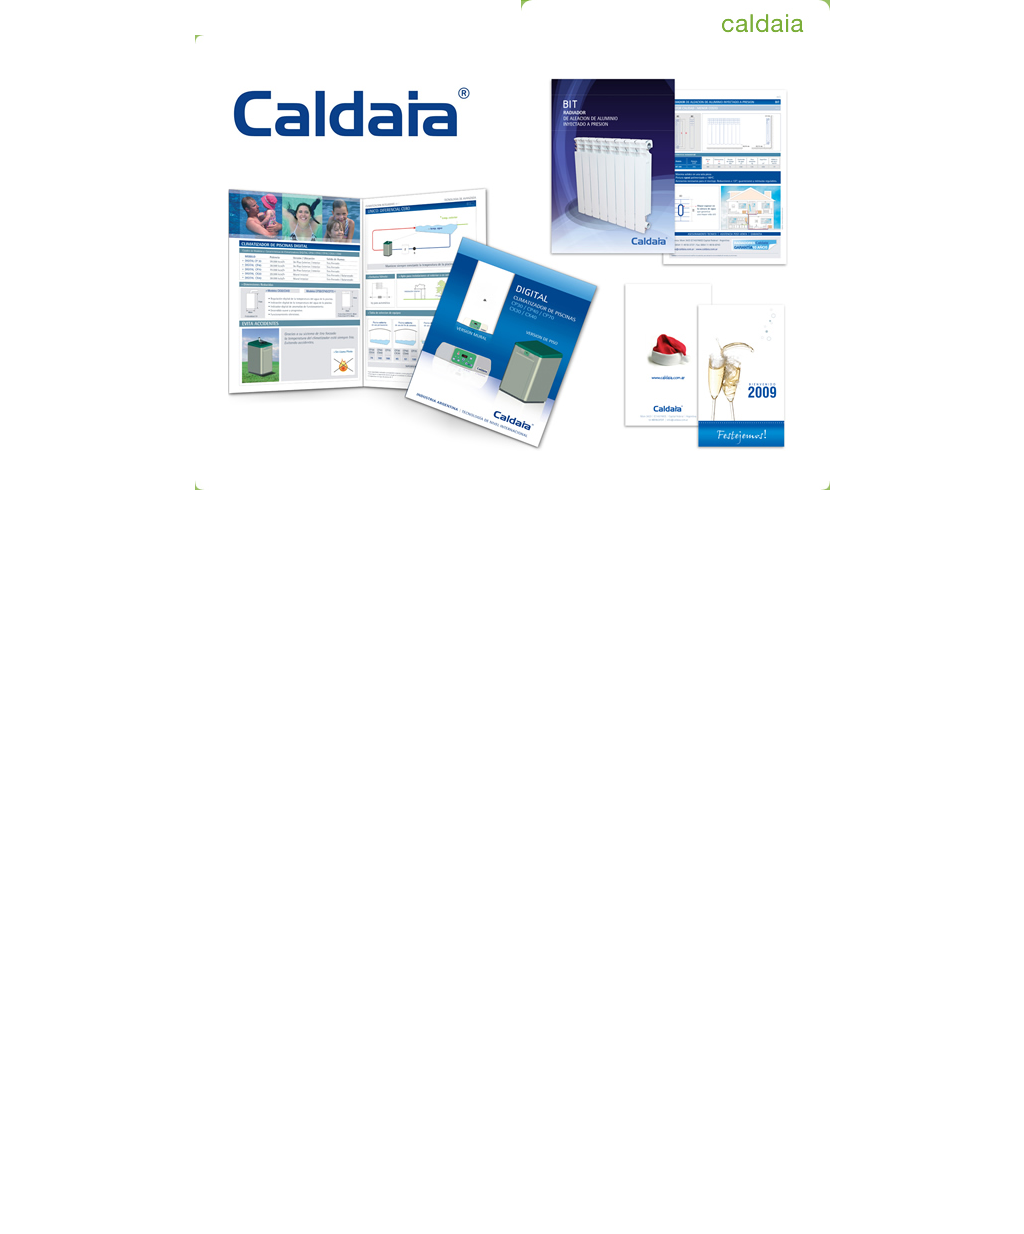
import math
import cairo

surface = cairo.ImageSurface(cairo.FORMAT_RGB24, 1024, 1234)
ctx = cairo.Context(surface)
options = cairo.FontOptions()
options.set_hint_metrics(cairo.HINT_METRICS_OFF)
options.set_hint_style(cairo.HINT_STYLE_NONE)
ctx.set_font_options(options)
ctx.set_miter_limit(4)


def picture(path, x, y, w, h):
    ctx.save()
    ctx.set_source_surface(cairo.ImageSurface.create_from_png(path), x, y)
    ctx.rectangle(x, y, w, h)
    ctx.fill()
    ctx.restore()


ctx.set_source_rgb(1, 1, 1)
ctx.paint()
picture("img1.png", 521, 0, 309, 34)
picture("img2.png", 195, 35, 9, 9)
picture("img3.png", 228, 78, 562, 373)
picture("img4.png", 195, 480, 635, 10)
surface.write_to_png("page.png")
